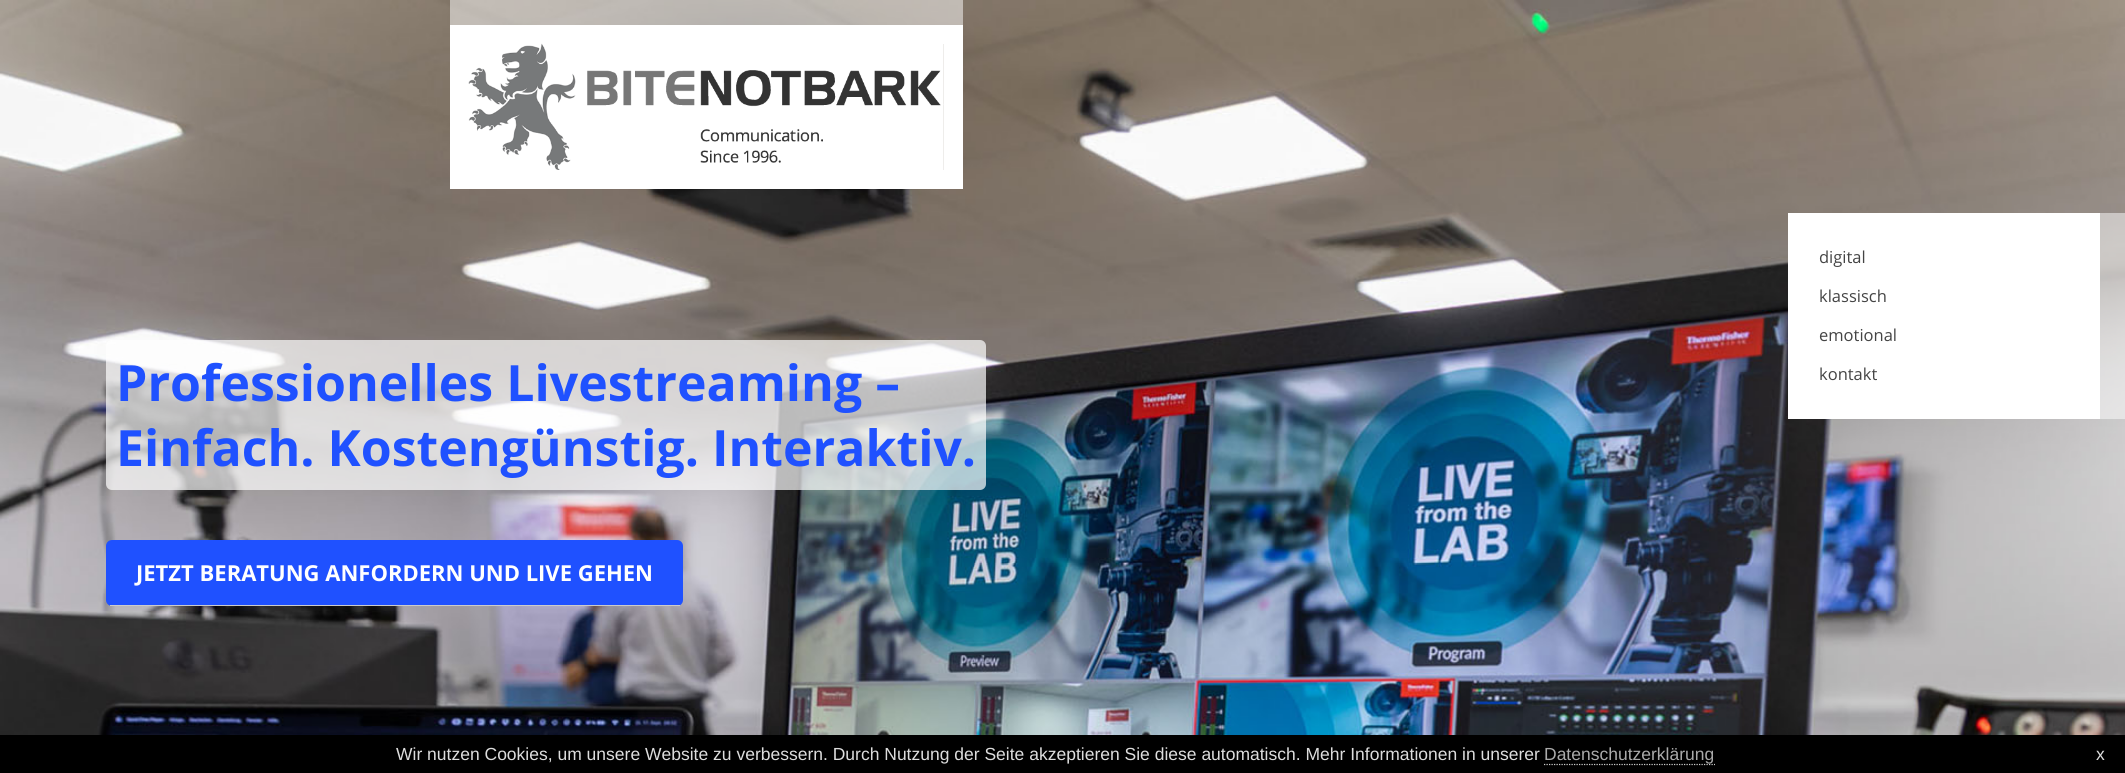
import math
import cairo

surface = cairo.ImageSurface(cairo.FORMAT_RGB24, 2125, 773)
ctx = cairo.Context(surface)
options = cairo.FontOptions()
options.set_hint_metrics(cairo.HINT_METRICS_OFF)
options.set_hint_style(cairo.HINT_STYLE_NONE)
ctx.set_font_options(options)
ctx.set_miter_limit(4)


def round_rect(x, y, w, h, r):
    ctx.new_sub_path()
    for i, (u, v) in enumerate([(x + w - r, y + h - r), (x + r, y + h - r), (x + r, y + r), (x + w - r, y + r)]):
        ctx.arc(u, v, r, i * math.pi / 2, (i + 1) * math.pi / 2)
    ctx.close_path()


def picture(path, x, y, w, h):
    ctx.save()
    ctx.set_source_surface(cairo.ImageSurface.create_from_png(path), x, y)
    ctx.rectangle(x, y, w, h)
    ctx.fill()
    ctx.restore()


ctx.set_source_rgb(1, 1, 1)
ctx.paint()
picture("img2.png", 0, 0, 2125, 735)
ctx.set_source_rgba(1, 1, 1, 0.5)
ctx.rectangle(450, 0, 513, 170)
ctx.fill()
ctx.new_path()
ctx.move_to(450, 104.5)
ctx.line_to(962.5, 104.5)
ctx.set_source_rgb(0.8, 0.8, 0.8)
ctx.set_line_width(1.2)
ctx.set_dash([1.25, 1.25])
ctx.stroke()
ctx.rectangle(459.5, 34.5, 494, 145)
ctx.set_source_rgb(1, 1, 1)
ctx.set_line_width(19)
ctx.set_dash([])
ctx.stroke()
picture("img1.png", 468, 43, 476, 127)
ctx.set_source_rgba(1, 1, 1, 0.5)
ctx.rectangle(2100, 213, 25, 206)
ctx.fill()
ctx.set_source_rgb(1, 1, 1)
ctx.rectangle(1788, 213, 312, 206)
ctx.fill()
ctx.select_font_face("Open Sans")
ctx.set_font_size(16.5)
ctx.set_source_rgb(0.267, 0.267, 0.267)
ctx.move_to(1819, 263)
ctx.show_text("digital")
ctx.move_to(1819, 302)
ctx.show_text("klassisch")
ctx.move_to(1819, 341)
ctx.show_text("emotional")
ctx.move_to(1819, 380)
ctx.show_text("kontakt")
ctx.set_source_rgba(1, 1, 1, 0.69)
round_rect(106, 340, 880, 150, 6)
ctx.fill()
ctx.select_font_face("Open Sans", cairo.FONT_SLANT_NORMAL, cairo.FONT_WEIGHT_BOLD)
ctx.set_font_size(50)
ctx.set_source_rgb(0.122, 0.318, 1)
ctx.move_to(116, 401)
ctx.show_text("Professionelles Livestreaming –")
ctx.move_to(116, 466)
ctx.show_text("Einfach. Kostengünstig. Interaktiv.")
round_rect(106, 540, 577, 66, 6)
ctx.fill()
ctx.set_source_rgb(0.8, 0.8, 0.8)
ctx.rectangle(110, 605, 570, 1)
ctx.fill()
ctx.set_font_size(22)
ctx.set_source_rgb(1, 1, 1)
ctx.move_to(136, 581)
ctx.show_text("JETZT BERATUNG ANFORDERN UND LIVE GEHEN")
ctx.set_source_rgb(0, 0, 0)
ctx.rectangle(0, 735, 2125, 38)
ctx.fill()
ctx.select_font_face("Liberation Sans")
ctx.set_font_size(17.5)
ctx.set_source_rgb(0.867, 0.867, 0.867)
ctx.move_to(396, 760)
ctx.show_text("Wir nutzen Cookies, um unsere Website zu verbessern. Durch Nutzung der Seite akzeptieren Sie diese automatisch. Mehr Informationen in unserer")
ctx.new_path()
ctx.move_to(1544, 764.5)
ctx.line_to(1715, 764.5)
ctx.set_source_rgb(0.8, 0.8, 0.8)
ctx.set_line_width(1.2)
ctx.set_dash([1.25, 1.25])
ctx.stroke()
ctx.set_source_rgb(0.667, 0.667, 0.667)
ctx.move_to(1544, 760)
ctx.show_text("Datenschutzerklärung")
ctx.set_source_rgb(0.867, 0.867, 0.867)
ctx.move_to(2096, 760)
ctx.show_text("x")
surface.write_to_png("page.png")
